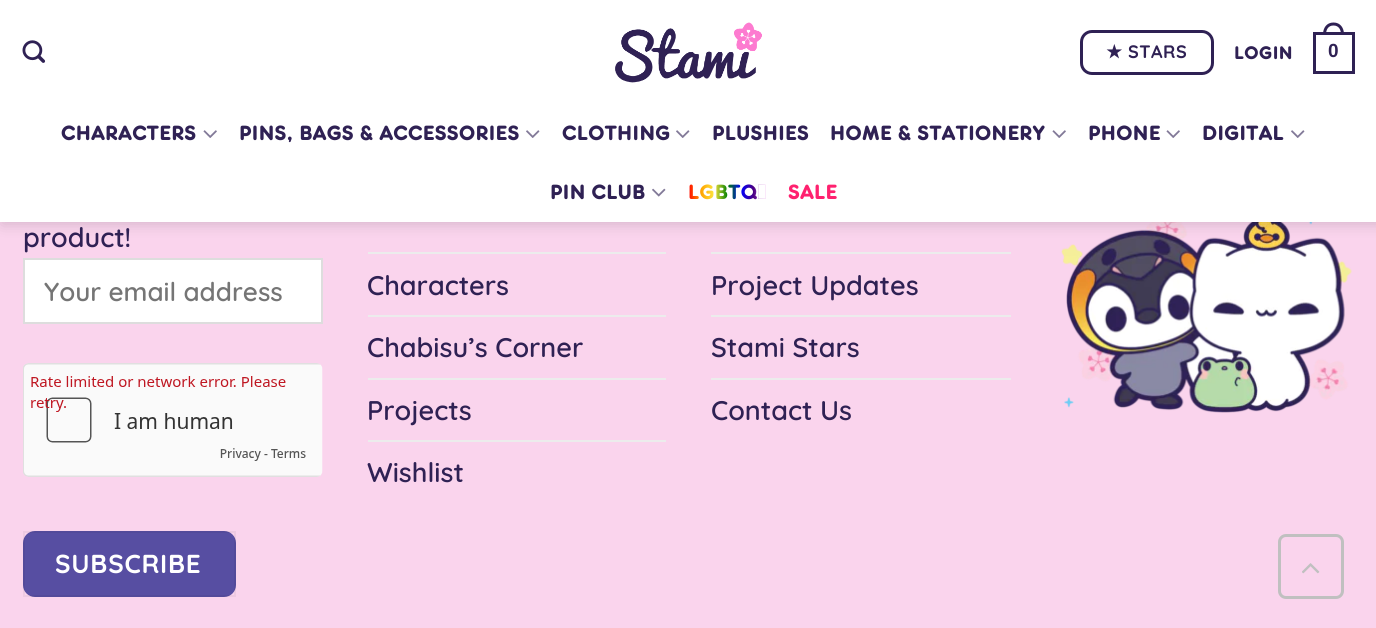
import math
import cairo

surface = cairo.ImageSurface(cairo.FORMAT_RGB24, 1376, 628)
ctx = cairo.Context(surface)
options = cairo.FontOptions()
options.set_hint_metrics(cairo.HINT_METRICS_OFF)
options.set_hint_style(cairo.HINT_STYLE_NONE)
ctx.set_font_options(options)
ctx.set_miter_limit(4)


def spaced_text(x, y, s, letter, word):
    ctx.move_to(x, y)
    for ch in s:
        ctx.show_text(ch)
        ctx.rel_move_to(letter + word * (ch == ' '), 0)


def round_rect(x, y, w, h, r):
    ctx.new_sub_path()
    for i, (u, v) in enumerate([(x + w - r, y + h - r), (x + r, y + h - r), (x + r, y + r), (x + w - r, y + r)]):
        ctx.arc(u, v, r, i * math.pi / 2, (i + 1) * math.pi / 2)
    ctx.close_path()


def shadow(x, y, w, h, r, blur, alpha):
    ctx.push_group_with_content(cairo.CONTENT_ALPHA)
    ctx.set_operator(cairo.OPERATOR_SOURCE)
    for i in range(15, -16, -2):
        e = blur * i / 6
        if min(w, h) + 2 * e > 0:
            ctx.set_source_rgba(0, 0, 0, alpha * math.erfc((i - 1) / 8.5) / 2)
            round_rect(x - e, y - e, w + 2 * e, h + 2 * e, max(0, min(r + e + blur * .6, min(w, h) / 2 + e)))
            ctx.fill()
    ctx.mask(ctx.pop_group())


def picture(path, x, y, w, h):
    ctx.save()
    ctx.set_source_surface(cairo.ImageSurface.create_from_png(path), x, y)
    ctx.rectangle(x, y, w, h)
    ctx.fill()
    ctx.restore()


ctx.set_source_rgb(0.98, 0.831, 0.929)
ctx.paint()
picture("img7.png", 1061, 222, 291, 191)
ctx.set_source_rgb(0, 0, 0)
shadow(2, 2, 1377, 222, 0, 7.5, 0.15)
ctx.set_source_rgb(1, 1, 1)
ctx.rectangle(0, 0, 1376, 222)
ctx.fill()
picture("img1.png", 22, 40, 24, 23)
picture("img2.png", 615, 22, 147, 61)
round_rect(1081.5, 31.5, 131, 42, 10.5)
ctx.set_source_rgb(0.184, 0.129, 0.329)
ctx.set_line_width(3)
ctx.stroke()
ctx.select_font_face("DejaVu Sans", cairo.FONT_SLANT_NORMAL, cairo.FONT_WEIGHT_BOLD)
ctx.set_font_size(18)
spaced_text(1106, 58, "★", 0.5, 0)
ctx.select_font_face("Quicksand", cairo.FONT_SLANT_NORMAL, cairo.FONT_WEIGHT_BOLD)
spaced_text(1128, 58, "STARS", 0.5, 0)
ctx.select_font_face("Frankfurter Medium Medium")
ctx.set_font_size(19)
spaced_text(1234, 59, "LOGIN", 0.5, 0)
ctx.rectangle(1314.5, 33.5, 39, 39)
ctx.stroke()
ctx.set_fill_rule(cairo.FILL_RULE_EVEN_ODD)
ctx.new_path()
ctx.move_to(1333.5, 22.5)
ctx.curve_to(1340.5, 22.5, 1344, 28, 1344, 34.5)
ctx.line_to(1323, 34.5)
ctx.curve_to(1323, 28, 1326.5, 22.5, 1333.5, 22.5)
ctx.close_path()
ctx.move_to(1333.5, 25.5)
ctx.curve_to(1339, 25.5, 1341, 30, 1341, 34.5)
ctx.line_to(1326, 34.5)
ctx.curve_to(1326, 30, 1328, 25.5, 1333.5, 25.5)
ctx.close_path()
ctx.fill()
ctx.select_font_face("Liberation Sans", cairo.FONT_SLANT_NORMAL, cairo.FONT_WEIGHT_BOLD)
spaced_text(1328, 57, "0", 0.5, 0)
ctx.select_font_face("Frankfurter Medium Medium")
ctx.set_font_size(21.5)
spaced_text(61, 140, "CHARACTERS", 0.4, 0)
picture("img3.png", 203, 130, 14, 8)
spaced_text(239, 140, "PINS, BAGS & ACCESSORIES", 0.4, 0)
picture("img4.png", 526, 130, 14, 8)
spaced_text(562, 140, "CLOTHING", 0.4, 0)
picture("img4.png", 676, 130, 14, 8)
spaced_text(712, 140, "PLUSHIES", 0.4, 0)
spaced_text(830, 140, "HOME & STATIONERY", 0.4, 0)
picture("img3.png", 1052, 130, 14, 8)
spaced_text(1088, 140, "PHONE", 0.4, 0)
picture("img3.png", 1166, 130, 14, 8)
spaced_text(1202, 140, "DIGITAL", 0.4, 0)
picture("img4.png", 1291, 130, 14, 8)
spaced_text(550, 199, "PIN CLUB", 0.4, 0)
picture("img5.png", 652, 188, 14, 9)
gradient = cairo.LinearGradient(767, 193, 688, 193)
gradient.add_color_stop_rgba(0, 0.933, 0.51, 0.933, 1)
gradient.add_color_stop_rgba(0.17, 0.294, 0, 0.51, 1)
gradient.add_color_stop_rgba(0.33, 0, 0, 1, 1)
gradient.add_color_stop_rgba(0.5, 0, 0.502, 0, 1)
gradient.add_color_stop_rgba(0.67, 0.992, 0.898, 0.255, 1)
gradient.add_color_stop_rgba(0.83, 1, 0.647, 0, 1)
gradient.add_color_stop_rgba(1, 1, 0, 0, 1)
ctx.set_source(gradient)
spaced_text(688, 199, "LGBTQ+", 0.4, 0)
ctx.set_source_rgb(1, 0.129, 0.435)
spaced_text(788, 199, "SALE", 0.4, 0)
ctx.select_font_face("Quicksand SemiBold")
ctx.set_font_size(27)
ctx.set_source_rgb(0.184, 0.129, 0.329)
ctx.move_to(23, 247)
ctx.show_text("product!")
ctx.set_source_rgb(1, 1, 1)
ctx.rectangle(24, 259, 298, 64)
ctx.fill_preserve()
ctx.set_source_rgb(0.867, 0.867, 0.867)
ctx.set_line_width(2)
ctx.stroke()
ctx.set_font_size(26)
ctx.set_source_rgb(0.459, 0.459, 0.459)
ctx.move_to(44, 301)
ctx.show_text("Your email address")
picture("img6.png", 23, 363, 300, 114)
ctx.set_source_rgb(0.341, 0.306, 0.635)
round_rect(23, 531, 213, 66, 12)
ctx.fill()
ctx.rectangle(24, 532, 211, 64)
ctx.set_source_rgba(0, 0, 0, 0.05)
ctx.stroke()
ctx.select_font_face("Quicksand", cairo.FONT_SLANT_NORMAL, cairo.FONT_WEIGHT_BOLD)
ctx.set_source_rgb(1, 1, 1)
spaced_text(55, 573, "SUBSCRIBE", 0.75, 0)
ctx.set_source_rgb(0.925, 0.925, 0.925)
ctx.rectangle(368, 252, 298, 2)
ctx.fill()
ctx.select_font_face("Quicksand SemiBold")
ctx.set_font_size(27)
ctx.set_source_rgb(0.184, 0.129, 0.329)
ctx.move_to(367, 295)
ctx.show_text("Characters")
ctx.set_source_rgb(0.925, 0.925, 0.925)
ctx.rectangle(368, 315, 298, 2)
ctx.fill()
ctx.set_source_rgb(0.184, 0.129, 0.329)
ctx.move_to(367, 357)
ctx.show_text("Chabisu’s Corner")
ctx.set_source_rgb(0.925, 0.925, 0.925)
ctx.rectangle(368, 378, 298, 2)
ctx.fill()
ctx.set_source_rgb(0.184, 0.129, 0.329)
ctx.move_to(367, 420)
ctx.show_text("Projects")
ctx.set_source_rgb(0.925, 0.925, 0.925)
ctx.rectangle(368, 440, 298, 2)
ctx.fill()
ctx.set_source_rgb(0.184, 0.129, 0.329)
ctx.move_to(367, 482)
ctx.show_text("Wishlist")
ctx.set_source_rgb(0.925, 0.925, 0.925)
ctx.rectangle(711, 252, 300, 2)
ctx.fill()
ctx.set_source_rgb(0.184, 0.129, 0.329)
ctx.move_to(711, 295)
ctx.show_text("Project Updates")
ctx.set_source_rgb(0.925, 0.925, 0.925)
ctx.rectangle(711, 315, 300, 2)
ctx.fill()
ctx.set_source_rgb(0.184, 0.129, 0.329)
ctx.move_to(711, 357)
ctx.show_text("Stami Stars")
ctx.set_source_rgb(0.925, 0.925, 0.925)
ctx.rectangle(711, 378, 300, 2)
ctx.fill()
ctx.set_source_rgb(0.184, 0.129, 0.329)
ctx.move_to(711, 420)
ctx.show_text("Contact Us")
round_rect(1279.5, 535.5, 63, 62, 6.5)
ctx.set_source_rgb(0.753, 0.753, 0.753)
ctx.set_line_width(3)
ctx.stroke()
picture("img8.png", 1302, 563, 18, 11)
surface.write_to_png("page.png")
